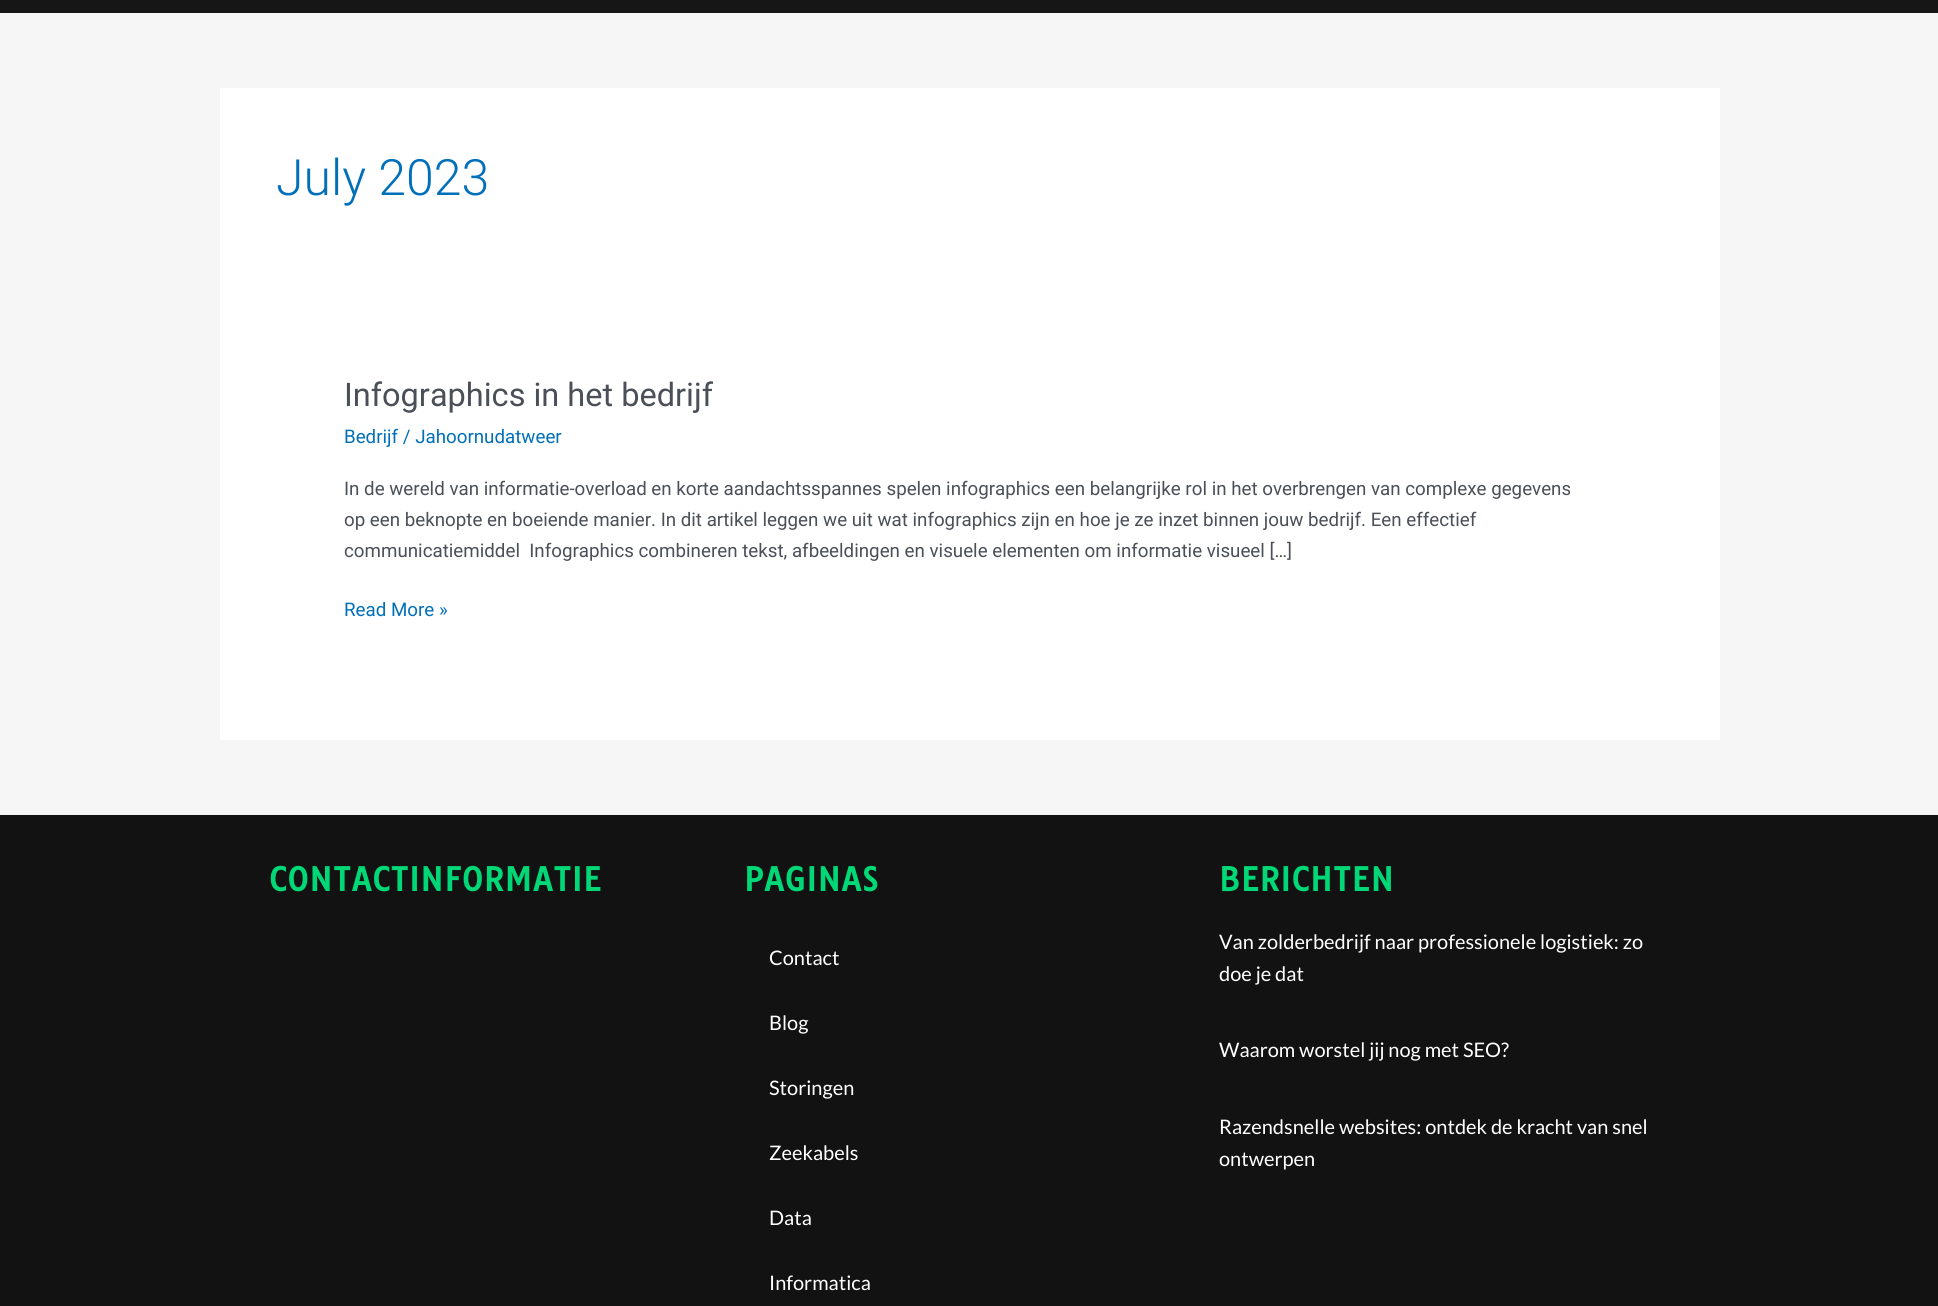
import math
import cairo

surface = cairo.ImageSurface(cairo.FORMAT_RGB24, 1938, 1306)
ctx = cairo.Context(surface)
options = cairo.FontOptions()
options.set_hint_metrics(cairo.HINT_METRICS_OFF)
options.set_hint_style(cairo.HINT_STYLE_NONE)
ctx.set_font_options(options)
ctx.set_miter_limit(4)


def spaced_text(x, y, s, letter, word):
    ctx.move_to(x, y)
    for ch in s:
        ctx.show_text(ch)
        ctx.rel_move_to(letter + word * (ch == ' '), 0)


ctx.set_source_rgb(0.961, 0.961, 0.961)
ctx.paint()
ctx.set_source_rgb(0.086, 0.086, 0.086)
ctx.rectangle(0, 0, 1938, 13)
ctx.fill()
ctx.set_source_rgb(1, 1, 1)
ctx.rectangle(220, 88, 1500, 652)
ctx.fill()
ctx.select_font_face("Roboto Light")
ctx.set_font_size(50)
ctx.set_source_rgb(0.004, 0.439, 0.725)
ctx.move_to(276, 195)
ctx.show_text("July 2023")
ctx.select_font_face("Roboto")
ctx.set_font_size(32.5)
ctx.set_source_rgb(0.294, 0.31, 0.345)
ctx.move_to(344, 406)
ctx.show_text("Infographics in het bedrijf")
ctx.set_font_size(18.75)
ctx.set_source_rgb(0.004, 0.439, 0.725)
ctx.move_to(344, 443)
ctx.show_text("Bedrijf / Jahoornudatweer")
ctx.set_source_rgb(0.294, 0.31, 0.345)
ctx.move_to(344, 495)
ctx.show_text("In de wereld van informatie-overload en korte aandachtsspannes spelen infographics een belangrijke rol in het overbrengen van complexe gegevens")
ctx.move_to(344, 526)
ctx.show_text("op een beknopte en boeiende manier. In dit artikel leggen we uit wat infographics zijn en hoe je ze inzet binnen jouw bedrijf. Een effectief")
ctx.move_to(344, 557)
ctx.show_text("communicatiemiddel  Infographics combineren tekst, afbeeldingen en visuele elementen om informatie visueel […]")
ctx.set_source_rgb(0.004, 0.439, 0.725)
ctx.move_to(344, 616)
ctx.show_text("Read More »")
ctx.set_source_rgb(0.071, 0.071, 0.071)
ctx.rectangle(0, 815, 1938, 491)
ctx.fill()
ctx.select_font_face("Tauri", cairo.FONT_SLANT_NORMAL, cairo.FONT_WEIGHT_BOLD)
ctx.set_font_size(31.25)
ctx.set_source_rgb(0, 0.847, 0.467)
spaced_text(269, 891, "CONTACTINFORMATIE", 1.25, 0)
spaced_text(744, 891, "PAGINAS", 1.25, 0)
ctx.select_font_face("Lato")
ctx.set_font_size(20)
ctx.set_source_rgb(1, 1, 1)
ctx.move_to(769, 965)
ctx.show_text("Contact")
ctx.move_to(769, 1030)
ctx.show_text("Blog")
ctx.move_to(769, 1095)
ctx.show_text("Storingen")
ctx.move_to(769, 1160)
ctx.show_text("Zeekabels")
ctx.move_to(769, 1225)
ctx.show_text("Data")
ctx.move_to(769, 1290)
ctx.show_text("Informatica")
ctx.select_font_face("Tauri", cairo.FONT_SLANT_NORMAL, cairo.FONT_WEIGHT_BOLD)
ctx.set_font_size(31.25)
ctx.set_source_rgb(0, 0.847, 0.467)
spaced_text(1219, 891, "BERICHTEN", 1.25, 0)
ctx.select_font_face("Lato")
ctx.set_font_size(20)
ctx.set_source_rgb(1, 1, 1)
ctx.move_to(1219, 949)
ctx.show_text("Van zolderbedrijf naar professionele logistiek: zo")
ctx.move_to(1219, 981)
ctx.show_text("doe je dat")
ctx.move_to(1219, 1057)
ctx.show_text("Waarom worstel jij nog met SEO?")
ctx.move_to(1219, 1134)
ctx.show_text("Razendsnelle websites: ontdek de kracht van snel")
ctx.move_to(1219, 1166)
ctx.show_text("ontwerpen")
surface.write_to_png("page.png")
